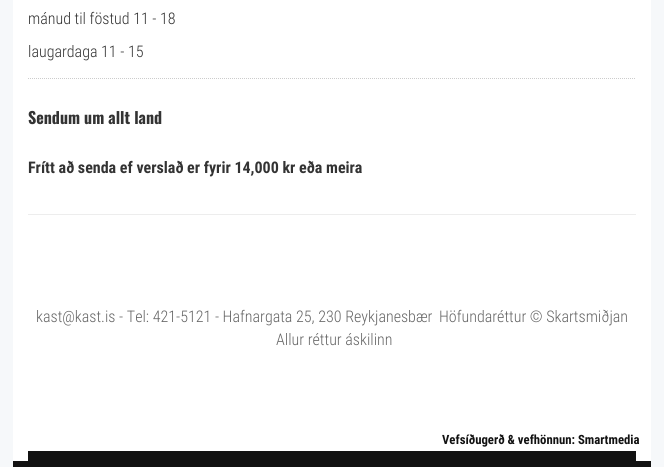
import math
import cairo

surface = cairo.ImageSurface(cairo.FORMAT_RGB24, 664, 467)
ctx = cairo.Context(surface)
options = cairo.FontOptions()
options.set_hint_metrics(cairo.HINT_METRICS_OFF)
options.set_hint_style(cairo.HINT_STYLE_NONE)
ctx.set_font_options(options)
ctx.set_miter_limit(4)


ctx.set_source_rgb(0.961, 0.969, 0.98)
ctx.paint()
ctx.set_source_rgb(1, 1, 1)
ctx.rectangle(13, 0, 638, 461)
ctx.fill()
ctx.set_source_rgb(0.071, 0.071, 0.071)
ctx.rectangle(13, 461, 638, 6)
ctx.fill()
ctx.set_source_rgb(0.929, 0.929, 0.929)
ctx.rectangle(28, 214, 608, 1)
ctx.fill()
ctx.select_font_face("Roboto Condensed Light")
ctx.set_font_size(16)
ctx.set_source_rgb(0.2, 0.2, 0.2)
ctx.move_to(28, 24)
ctx.show_text("mánud til föstud 11 - 18")
ctx.move_to(28, 57)
ctx.show_text("laugardaga 11 - 15")
ctx.new_path()
ctx.move_to(28, 78.5)
ctx.line_to(636, 78.5)
ctx.set_source_rgb(0.8, 0.8, 0.8)
ctx.set_line_width(1)
ctx.set_dash([1, 1])
ctx.stroke()
ctx.select_font_face("Oswald", cairo.FONT_SLANT_NORMAL, cairo.FONT_WEIGHT_BOLD)
ctx.set_source_rgb(0.2, 0.2, 0.2)
ctx.move_to(28, 124)
ctx.show_text("Sendum um allt land")
ctx.select_font_face("Roboto Condensed", cairo.FONT_SLANT_NORMAL, cairo.FONT_WEIGHT_BOLD)
ctx.move_to(28, 173)
ctx.show_text("Frítt að senda ef verslað er fyrir 14,000 kr eða meira")
ctx.set_source_rgb(0.071, 0.071, 0.071)
ctx.rectangle(28, 451, 608, 10)
ctx.fill()
ctx.select_font_face("Roboto Condensed Light")
ctx.set_source_rgb(0.4, 0.4, 0.4)
ctx.move_to(36, 322)
ctx.show_text("kast@kast.is - Tel: 421-5121 - Hafnargata 25, 230 Reykjanesbær")
ctx.move_to(439, 322)
ctx.show_text("Höfundaréttur © Skartsmiðjan")
ctx.move_to(276, 345)
ctx.show_text("Allur réttur áskilinn")
ctx.select_font_face("Roboto Condensed", cairo.FONT_SLANT_NORMAL, cairo.FONT_WEIGHT_BOLD)
ctx.set_font_size(12.75)
ctx.set_source_rgb(0.071, 0.071, 0.071)
ctx.move_to(442, 444)
ctx.show_text("Vefsíðugerð & vefhönnun: Smartmedia")
surface.write_to_png("page.png")
